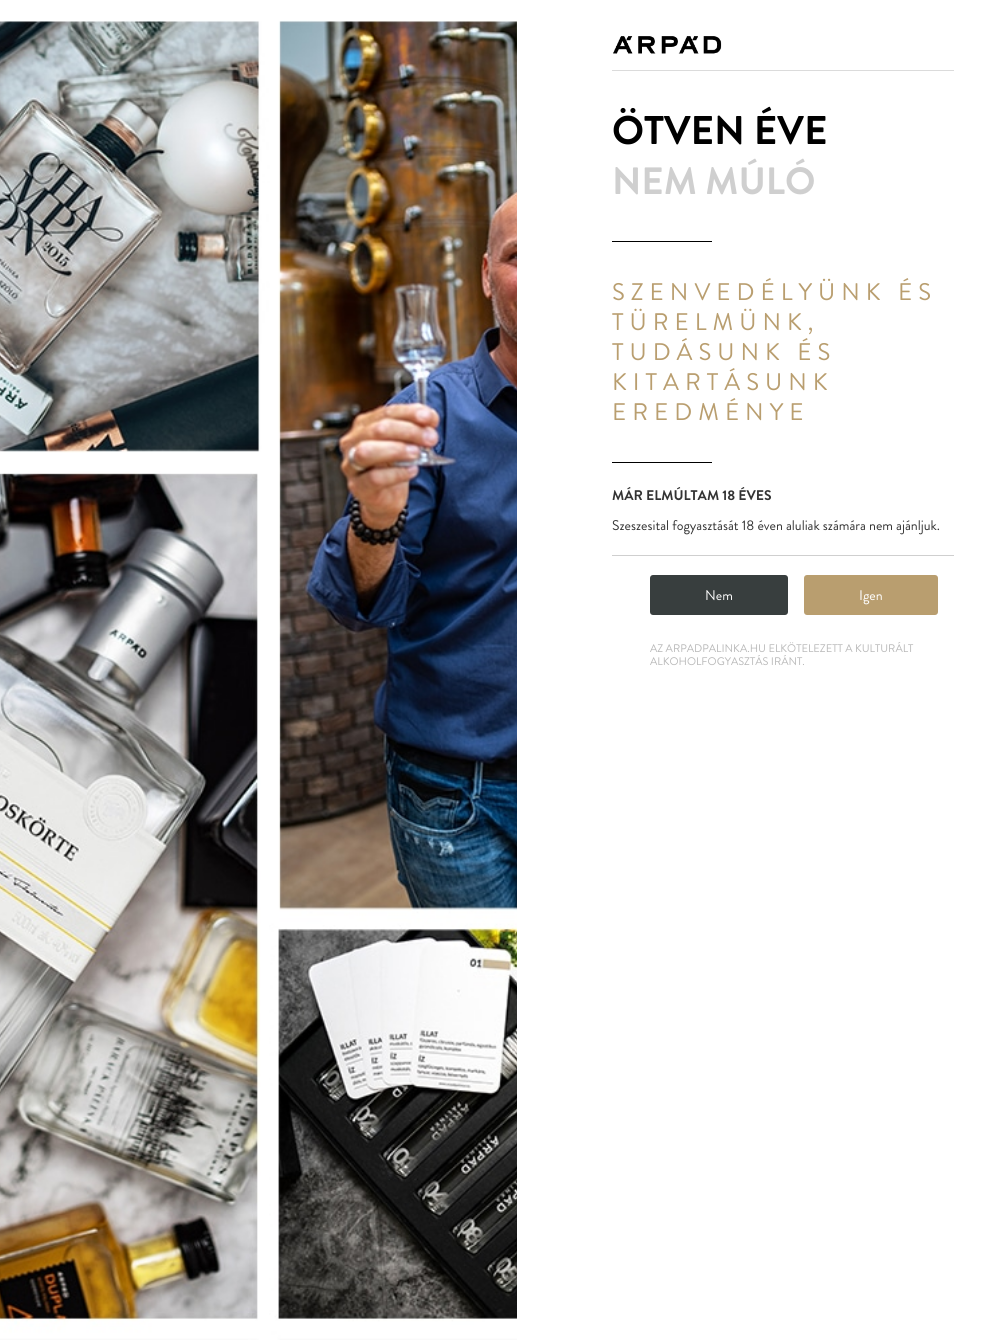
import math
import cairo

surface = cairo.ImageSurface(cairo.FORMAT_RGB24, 994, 1340)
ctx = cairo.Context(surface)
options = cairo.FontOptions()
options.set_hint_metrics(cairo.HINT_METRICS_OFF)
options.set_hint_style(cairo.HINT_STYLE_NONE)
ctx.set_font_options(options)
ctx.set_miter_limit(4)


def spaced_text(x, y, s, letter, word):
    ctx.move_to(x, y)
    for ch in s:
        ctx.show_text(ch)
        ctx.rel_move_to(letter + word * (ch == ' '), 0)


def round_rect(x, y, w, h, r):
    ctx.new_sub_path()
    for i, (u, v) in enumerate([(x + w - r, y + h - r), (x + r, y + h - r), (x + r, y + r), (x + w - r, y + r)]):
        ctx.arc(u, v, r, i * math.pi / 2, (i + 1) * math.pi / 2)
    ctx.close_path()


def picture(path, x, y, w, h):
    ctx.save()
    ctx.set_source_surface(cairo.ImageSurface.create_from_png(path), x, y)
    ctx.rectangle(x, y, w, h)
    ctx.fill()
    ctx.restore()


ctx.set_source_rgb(1, 1, 1)
ctx.paint()
picture("img1.png", 0, 20, 517, 1320)
ctx.set_source_rgb(0.859, 0.859, 0.859)
ctx.rectangle(612, 70, 342, 1)
ctx.fill()
picture("img2.png", 613, 36, 109, 18)
ctx.select_font_face("Brandon Grotesque", cairo.FONT_SLANT_NORMAL, cairo.FONT_WEIGHT_BOLD)
ctx.set_font_size(40)
ctx.set_source_rgb(0, 0, 0)
ctx.move_to(612, 144)
ctx.show_text("ÖTVEN ÉVE")
ctx.set_font_size(38)
ctx.set_source_rgb(0.812, 0.812, 0.812)
ctx.move_to(612, 194)
ctx.show_text("NEM MÚLÓ")
ctx.set_source_rgb(0, 0, 0)
ctx.rectangle(612, 241, 100, 1)
ctx.fill()
ctx.select_font_face("Brandon Grotesque")
ctx.set_font_size(24)
ctx.set_source_rgb(0.725, 0.62, 0.435)
spaced_text(612, 300, "SZENVEDÉLYÜNK ÉS", 6, 0)
spaced_text(612, 330, "TÜRELMÜNK,", 6, 0)
spaced_text(612, 360, "TUDÁSUNK ÉS", 6, 0)
spaced_text(612, 390, "KITARTÁSUNK", 6, 0)
spaced_text(612, 420, "EREDMÉNYE", 6, 0)
ctx.set_source_rgb(0, 0, 0)
ctx.rectangle(612, 462, 100, 1)
ctx.fill()
ctx.select_font_face("Brandon Grotesque", cairo.FONT_SLANT_NORMAL, cairo.FONT_WEIGHT_BOLD)
ctx.set_font_size(14)
ctx.set_source_rgb(0.2, 0.2, 0.2)
ctx.move_to(612, 500)
ctx.show_text("MÁR ELMÚLTAM 18 ÉVES")
ctx.select_font_face("Brandon Grotesque")
ctx.move_to(612, 530)
ctx.show_text("Szeszesital fogyasztását 18 éven aluliak számára nem ajánljuk.")
ctx.set_source_rgb(0.812, 0.812, 0.812)
ctx.rectangle(612, 555, 342, 1)
ctx.fill()
ctx.set_source_rgb(0.22, 0.243, 0.243)
round_rect(650, 575, 138, 40, 3)
ctx.fill()
ctx.set_source_rgb(1, 1, 1)
ctx.move_to(705, 600)
ctx.show_text("Nem")
ctx.set_source_rgb(0.725, 0.62, 0.435)
round_rect(804, 575, 134, 40, 3)
ctx.fill()
ctx.set_source_rgb(1, 1, 1)
ctx.move_to(859, 600)
ctx.show_text("Igen")
ctx.set_font_size(11)
ctx.set_source_rgb(0.722, 0.722, 0.722)
ctx.move_to(650, 652)
ctx.show_text("AZ ARPADPALINKA.HU ELKÖTELEZETT A KULTURÁLT")
ctx.move_to(650, 665)
ctx.show_text("ALKOHOLFOGYASZTÁS IRÁNT.")
surface.write_to_png("page.png")
